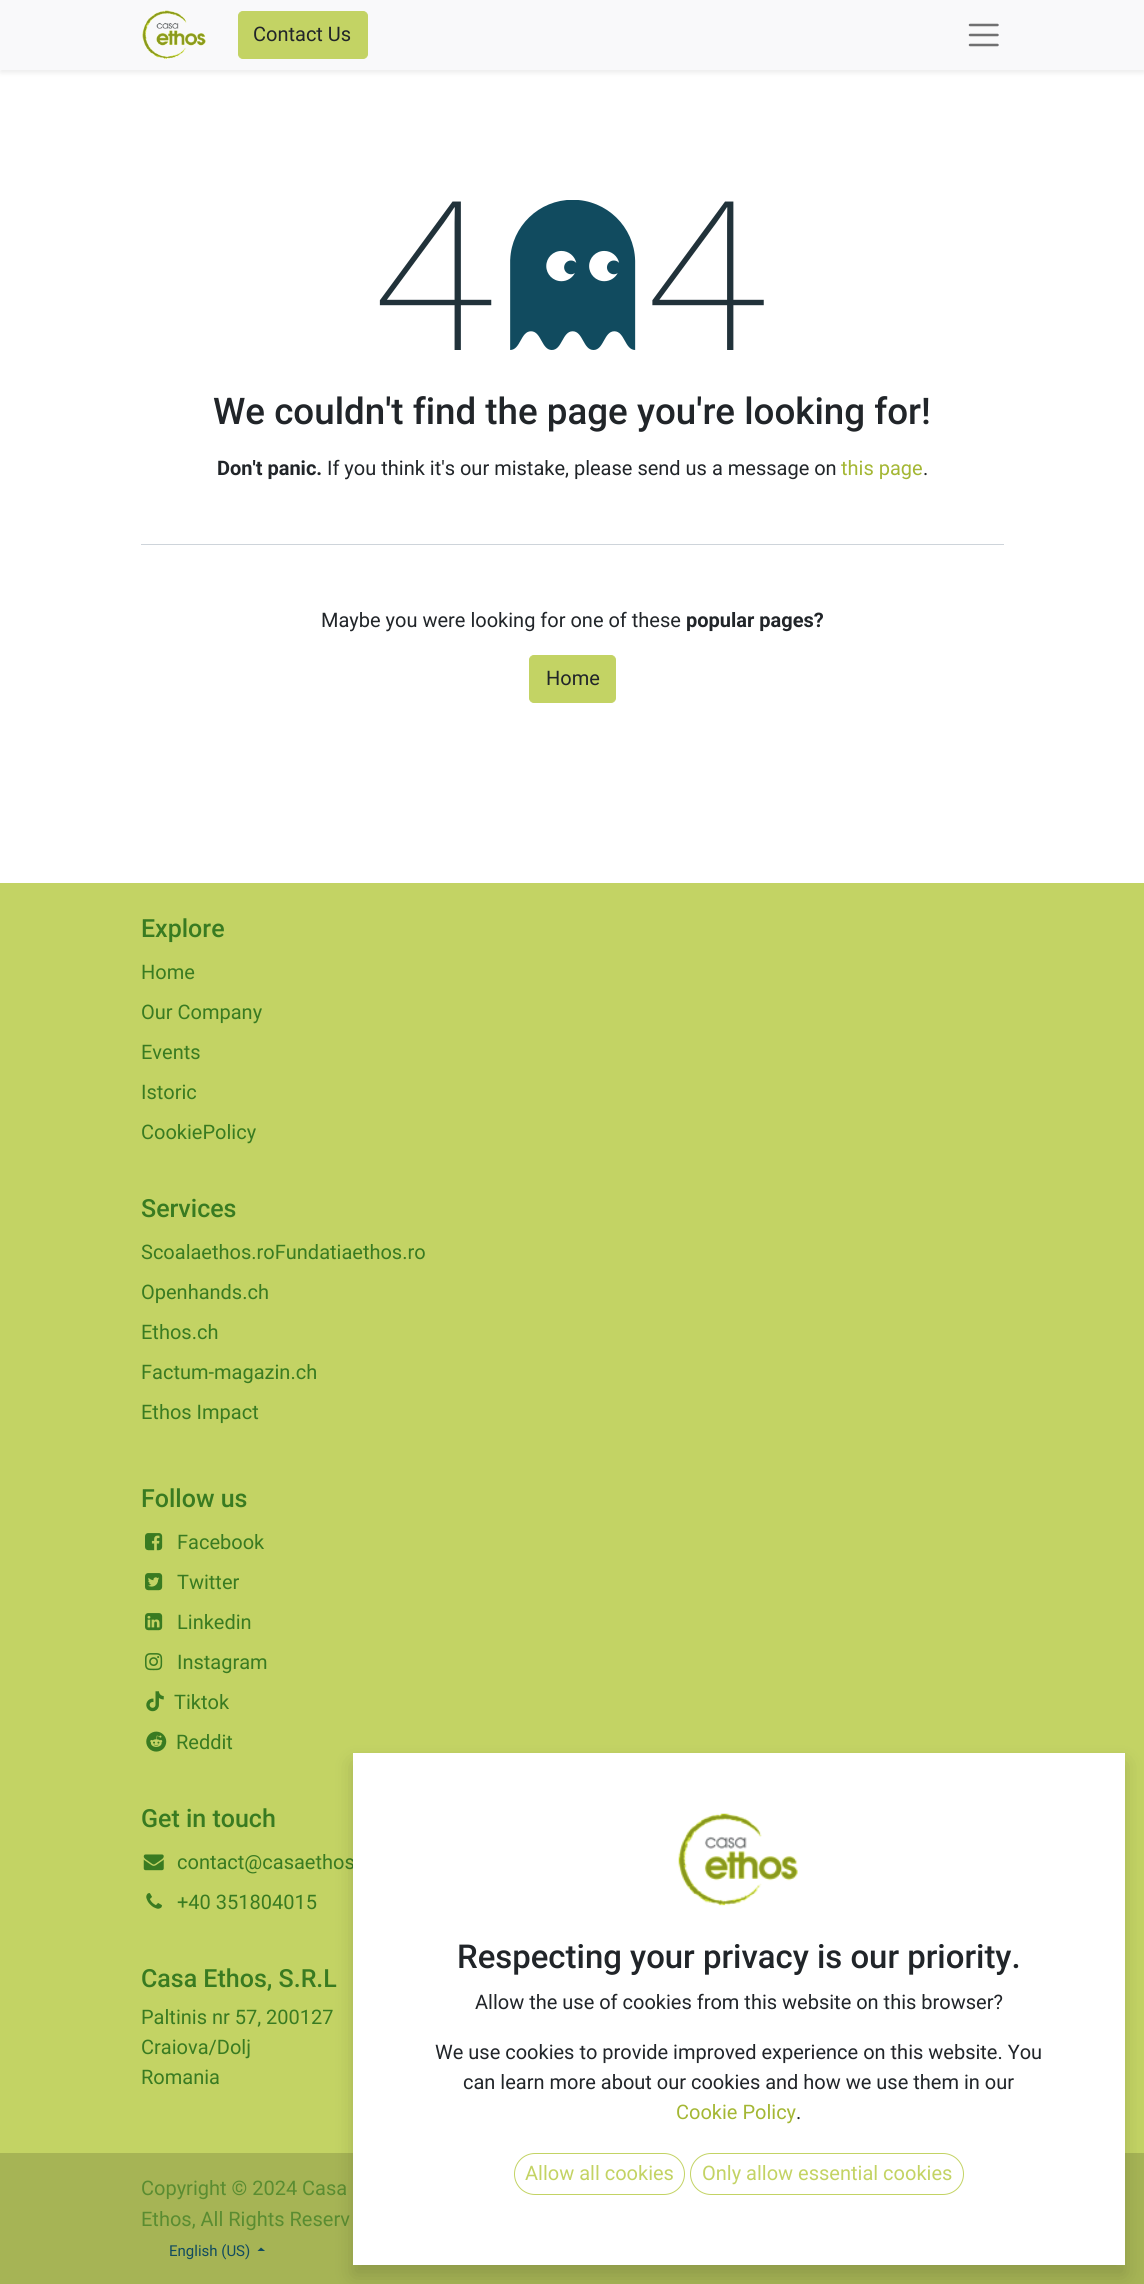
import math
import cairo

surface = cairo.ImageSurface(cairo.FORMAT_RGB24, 1144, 2284)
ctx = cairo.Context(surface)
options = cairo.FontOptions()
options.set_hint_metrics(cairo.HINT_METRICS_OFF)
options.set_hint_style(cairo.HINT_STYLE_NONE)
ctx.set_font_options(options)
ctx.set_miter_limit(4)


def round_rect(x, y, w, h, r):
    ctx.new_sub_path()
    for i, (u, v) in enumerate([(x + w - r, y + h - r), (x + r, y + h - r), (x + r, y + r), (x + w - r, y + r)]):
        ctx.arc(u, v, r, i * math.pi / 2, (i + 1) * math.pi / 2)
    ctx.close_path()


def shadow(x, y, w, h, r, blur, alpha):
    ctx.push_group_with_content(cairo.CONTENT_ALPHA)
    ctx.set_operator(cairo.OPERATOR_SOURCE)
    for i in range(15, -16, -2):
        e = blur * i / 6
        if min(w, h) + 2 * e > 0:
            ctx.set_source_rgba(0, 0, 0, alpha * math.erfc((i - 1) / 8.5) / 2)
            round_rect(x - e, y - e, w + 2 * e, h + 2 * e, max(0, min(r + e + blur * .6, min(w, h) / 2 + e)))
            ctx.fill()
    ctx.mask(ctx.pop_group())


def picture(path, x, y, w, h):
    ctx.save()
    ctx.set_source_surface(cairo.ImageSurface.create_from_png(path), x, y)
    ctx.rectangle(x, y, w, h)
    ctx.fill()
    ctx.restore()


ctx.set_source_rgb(1, 1, 1)
ctx.paint()
ctx.set_source_rgb(0, 0, 0)
shadow(0, 3, 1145, 70, 0, 2.5, 0.07)
ctx.set_source_rgb(0.973, 0.976, 0.98)
ctx.rectangle(0, 0, 1144, 70)
ctx.fill()
picture("img1.png", 142, 10, 64, 49)
ctx.set_source_rgb(0.765, 0.827, 0.392)
round_rect(238.5, 11.5, 129, 47, 4.5)
ctx.fill_preserve()
ctx.set_line_width(1)
ctx.stroke()
ctx.select_font_face("Roboto")
ctx.set_font_size(20)
ctx.set_source_rgb(0.129, 0.145, 0.161)
ctx.move_to(253, 41)
ctx.show_text("Contact Us")
ctx.new_path()
ctx.move_to(970, 25)
ctx.line_to(997.5, 25)
ctx.move_to(970, 35)
ctx.line_to(997.5, 35)
ctx.move_to(970, 45)
ctx.line_to(997.5, 45)
ctx.set_source_rgb(0.439, 0.439, 0.443)
ctx.set_line_width(2.5)
ctx.set_line_cap(cairo.LINE_CAP_ROUND)
ctx.stroke()
picture("img2.png", 379, 200, 385, 150)
ctx.select_font_face("Roboto Medium")
ctx.set_font_size(36.75)
ctx.set_source_rgb(0.129, 0.145, 0.161)
ctx.move_to(213, 424)
ctx.show_text("We couldn't find the page you're looking for!")
ctx.select_font_face("Roboto", cairo.FONT_SLANT_NORMAL, cairo.FONT_WEIGHT_BOLD)
ctx.set_font_size(20)
ctx.move_to(217, 475)
ctx.show_text("Don't panic.")
ctx.select_font_face("Roboto")
ctx.move_to(327, 475)
ctx.show_text("If you think it's our mistake, please send us a message on")
ctx.set_source_rgb(0.643, 0.718, 0.204)
ctx.move_to(841, 475)
ctx.show_text("this page")
ctx.set_source_rgb(0.129, 0.145, 0.161)
ctx.move_to(923, 475)
ctx.show_text(".")
ctx.set_source_rgb(0.808, 0.831, 0.855)
ctx.rectangle(141, 544, 863, 1)
ctx.fill()
ctx.set_source_rgb(0.129, 0.145, 0.161)
ctx.move_to(321, 627)
ctx.show_text("Maybe you were looking for one of these")
ctx.select_font_face("Roboto", cairo.FONT_SLANT_NORMAL, cairo.FONT_WEIGHT_BOLD)
ctx.move_to(686, 627)
ctx.show_text("popular pages?")
ctx.set_source_rgb(0.765, 0.827, 0.392)
round_rect(529.5, 655.5, 86, 47, 4.5)
ctx.fill_preserve()
ctx.set_line_width(1)
ctx.set_line_cap(cairo.LINE_CAP_BUTT)
ctx.stroke()
ctx.select_font_face("Roboto")
ctx.set_source_rgb(0.129, 0.145, 0.161)
ctx.move_to(546, 685)
ctx.show_text("Home")
ctx.set_source_rgb(0.765, 0.827, 0.392)
ctx.rectangle(0, 883, 1144, 1270)
ctx.fill()
ctx.select_font_face("Roboto Medium")
ctx.set_font_size(25)
ctx.set_source_rgb(0.224, 0.482, 0.129)
ctx.move_to(141, 937)
ctx.show_text("Explore")
ctx.select_font_face("Roboto")
ctx.set_font_size(20)
ctx.move_to(141, 979)
ctx.show_text("Home")
ctx.move_to(141, 1019)
ctx.show_text("Our Company")
ctx.move_to(141, 1059)
ctx.show_text("Events")
ctx.move_to(141, 1099)
ctx.show_text("Istoric")
ctx.move_to(141, 1139)
ctx.show_text("CookiePolicy")
ctx.select_font_face("Roboto Medium")
ctx.set_font_size(25)
ctx.move_to(141, 1217)
ctx.show_text("Services")
ctx.select_font_face("Roboto")
ctx.set_font_size(20)
ctx.move_to(141, 1259)
ctx.show_text("Scoalaethos.roFundatiaethos.ro")
ctx.move_to(141, 1299)
ctx.show_text("Openhands.ch")
ctx.move_to(141, 1339)
ctx.show_text("Ethos.ch")
ctx.move_to(141, 1379)
ctx.show_text("Factum-magazin.ch")
ctx.move_to(141, 1419)
ctx.show_text("Ethos Impact")
ctx.select_font_face("Roboto Medium")
ctx.set_font_size(25)
ctx.move_to(141, 1507)
ctx.show_text("Follow us")
picture("img3.png", 145, 1533, 18, 18)
ctx.select_font_face("Roboto")
ctx.set_font_size(20)
ctx.move_to(177, 1549)
ctx.show_text("Facebook")
picture("img4.png", 145, 1573, 18, 18)
ctx.move_to(177, 1589)
ctx.show_text("Twitter")
picture("img5.png", 145, 1613, 18, 18)
ctx.move_to(177, 1629)
ctx.show_text("Linkedin")
picture("img6.png", 145, 1653, 18, 18)
ctx.move_to(177, 1669)
ctx.show_text("Instagram")
picture("img7.png", 146, 1691, 18, 21)
ctx.move_to(174, 1709)
ctx.show_text("Tiktok")
picture("img8.png", 146, 1731, 21, 21)
ctx.move_to(176, 1749)
ctx.show_text("Reddit")
ctx.select_font_face("Roboto Medium")
ctx.set_font_size(25)
ctx.move_to(141, 1827)
ctx.show_text("Get in touch")
picture("img9.png", 143, 1854, 21, 17)
ctx.select_font_face("Roboto")
ctx.set_font_size(20)
ctx.move_to(177, 1869)
ctx.show_text("contact@casaethos")
picture("img10.png", 146, 1893, 16, 16)
ctx.move_to(177, 1909)
ctx.show_text("+40 351804015")
ctx.select_font_face("Roboto Medium")
ctx.set_font_size(25)
ctx.move_to(141, 1987)
ctx.show_text("Casa Ethos, S.R.L")
ctx.select_font_face("Roboto")
ctx.set_font_size(20)
ctx.move_to(141, 2024)
ctx.show_text("Paltinis nr 57, 200127")
ctx.move_to(141, 2054)
ctx.show_text("Craiova/Dolj")
ctx.move_to(141, 2084)
ctx.show_text("Romania")
ctx.set_source_rgb(0.651, 0.706, 0.333)
ctx.rectangle(0, 2153, 1144, 131)
ctx.fill()
ctx.set_source_rgb(0.353, 0.549, 0.192)
ctx.move_to(141, 2195)
ctx.show_text("Copyright © 2024 Casa")
ctx.move_to(141, 2226)
ctx.show_text("Ethos, All Rights Reserv")
ctx.set_font_size(15)
ctx.set_source_rgb(0.067, 0.294, 0.373)
ctx.move_to(169, 2256)
ctx.show_text("English (US)")
ctx.new_path()
ctx.move_to(265, 2251)
ctx.line_to(257.5, 2251)
ctx.line_to(261, 2247.5)
ctx.close_path()
ctx.fill()
ctx.set_source_rgb(0, 0, 0)
shadow(353, 1763, 772, 512, 0, 10, 0.15)
ctx.set_source_rgb(1, 1, 1)
ctx.rectangle(353, 1753, 772, 512)
ctx.fill()
picture("img11.png", 678, 1813, 120, 93)
ctx.select_font_face("Roboto Medium")
ctx.set_font_size(32.9)
ctx.set_source_rgb(0.129, 0.145, 0.161)
ctx.move_to(457, 1968)
ctx.show_text("Respecting your privacy is our priority.")
ctx.select_font_face("Roboto")
ctx.set_font_size(20)
ctx.move_to(475, 2009)
ctx.show_text("Allow the use of cookies from this website on this browser?")
ctx.move_to(435, 2059)
ctx.show_text("We use cookies to provide improved experience on this website. You")
ctx.move_to(463, 2089)
ctx.show_text("can learn more about our cookies and how we use them in our")
ctx.set_source_rgb(0.643, 0.718, 0.204)
ctx.move_to(676, 2119)
ctx.show_text("Cookie Policy")
ctx.set_source_rgb(0.129, 0.145, 0.161)
ctx.move_to(796, 2119)
ctx.show_text(".")
round_rect(514.5, 2153.5, 170, 41, 20.5)
ctx.set_source_rgb(0.765, 0.827, 0.392)
ctx.stroke()
ctx.move_to(525, 2180)
ctx.show_text("Allow all cookies")
round_rect(690.5, 2153.5, 273, 41, 20.5)
ctx.stroke()
ctx.move_to(702, 2180)
ctx.show_text("Only allow essential cookies")
surface.write_to_png("page.png")
